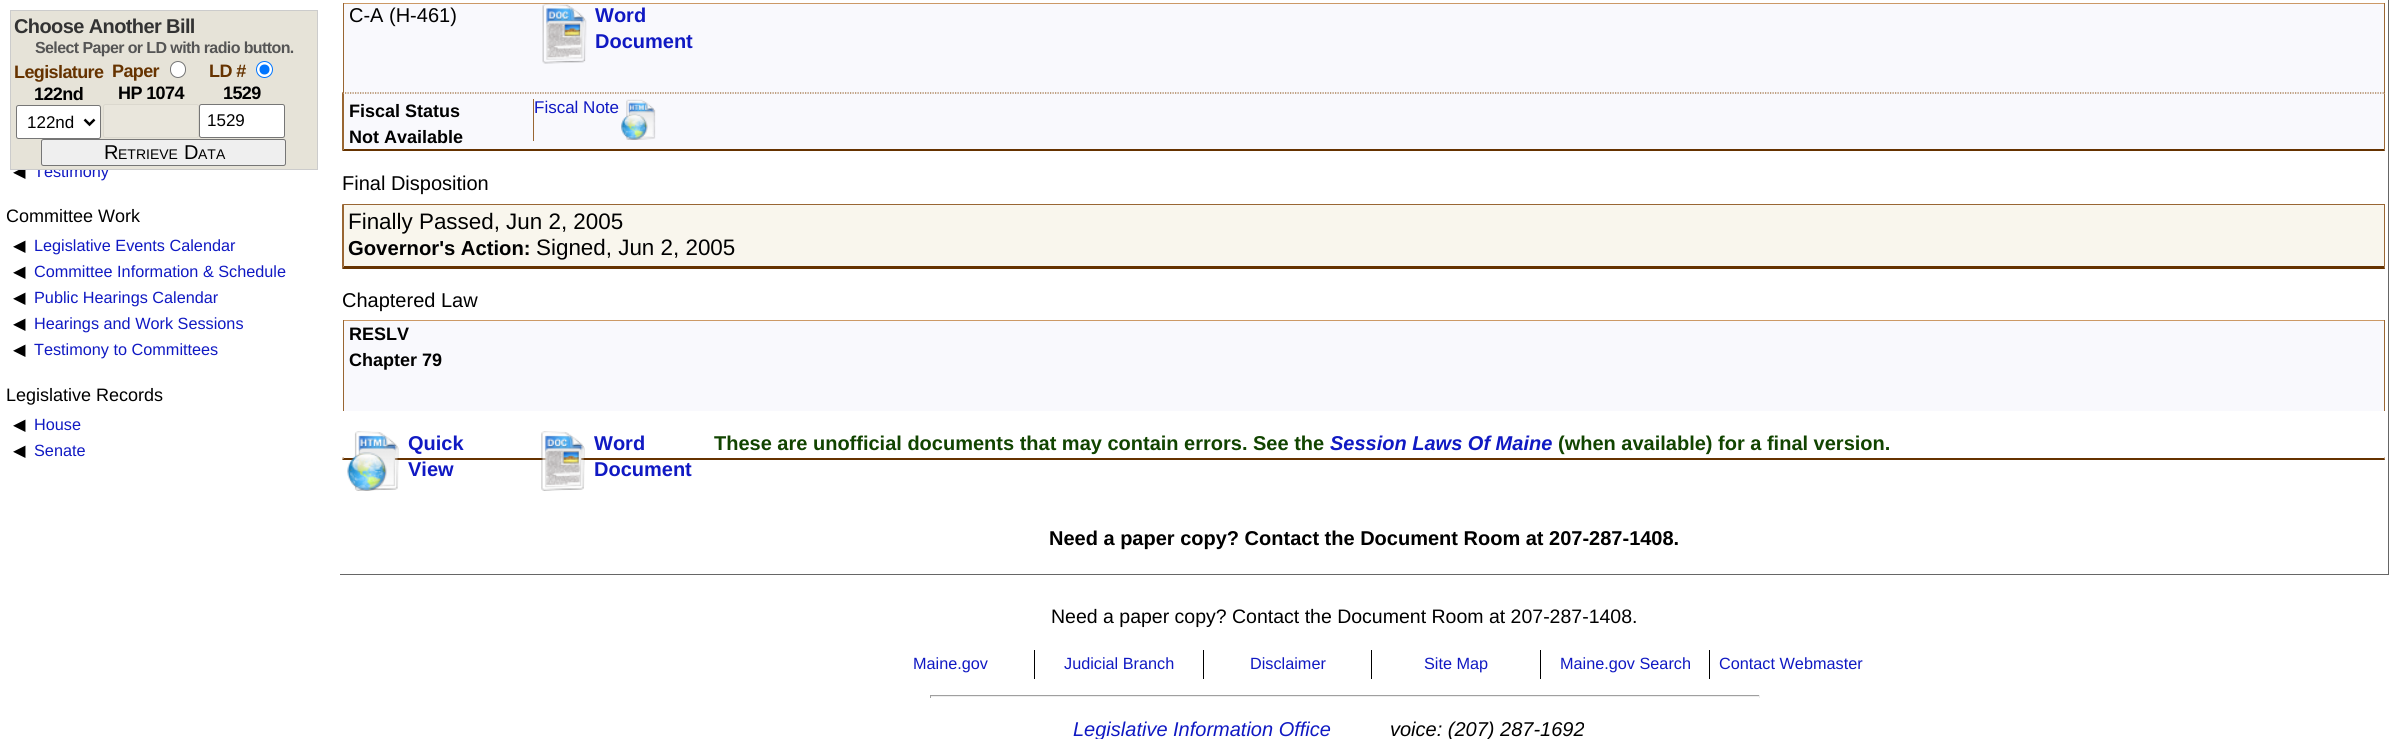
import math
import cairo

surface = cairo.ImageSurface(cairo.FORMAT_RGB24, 2408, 739)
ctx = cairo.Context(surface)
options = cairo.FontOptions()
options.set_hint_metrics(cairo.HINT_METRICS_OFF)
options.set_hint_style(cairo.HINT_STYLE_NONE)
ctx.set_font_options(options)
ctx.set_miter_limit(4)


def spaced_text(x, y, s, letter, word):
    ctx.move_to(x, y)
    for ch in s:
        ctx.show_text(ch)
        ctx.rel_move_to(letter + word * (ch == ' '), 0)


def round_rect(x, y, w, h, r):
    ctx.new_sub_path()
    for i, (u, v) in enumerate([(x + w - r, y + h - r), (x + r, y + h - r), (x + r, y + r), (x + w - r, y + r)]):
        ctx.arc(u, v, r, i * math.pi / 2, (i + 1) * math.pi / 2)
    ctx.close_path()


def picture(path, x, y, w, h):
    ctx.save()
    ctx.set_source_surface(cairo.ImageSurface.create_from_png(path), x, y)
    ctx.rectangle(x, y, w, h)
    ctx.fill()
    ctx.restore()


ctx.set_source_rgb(1, 1, 1)
ctx.paint()
ctx.select_font_face("DejaVu Sans")
ctx.set_font_size(16.25)
ctx.set_source_rgb(0, 0, 0)
ctx.move_to(13, 177)
ctx.show_text("◀")
ctx.select_font_face("Liberation Sans")
ctx.set_source_rgb(0.063, 0.098, 0.765)
ctx.move_to(34, 177)
ctx.show_text("Testimony")
ctx.set_font_size(18)
ctx.set_source_rgb(0, 0, 0)
ctx.move_to(6, 222)
ctx.show_text("Committee Work")
ctx.select_font_face("DejaVu Sans")
ctx.set_font_size(16.25)
ctx.move_to(13, 251)
ctx.show_text("◀")
ctx.select_font_face("Liberation Sans")
ctx.set_source_rgb(0.063, 0.098, 0.765)
ctx.move_to(34, 251)
ctx.show_text("Legislative Events Calendar")
ctx.select_font_face("DejaVu Sans")
ctx.set_source_rgb(0, 0, 0)
ctx.move_to(13, 277)
ctx.show_text("◀")
ctx.select_font_face("Liberation Sans")
ctx.set_source_rgb(0.063, 0.098, 0.765)
ctx.move_to(34, 277)
ctx.show_text("Committee Information & Schedule")
ctx.select_font_face("DejaVu Sans")
ctx.set_source_rgb(0, 0, 0)
ctx.move_to(13, 303)
ctx.show_text("◀")
ctx.select_font_face("Liberation Sans")
ctx.set_source_rgb(0.063, 0.098, 0.765)
ctx.move_to(34, 303)
ctx.show_text("Public Hearings Calendar")
ctx.select_font_face("DejaVu Sans")
ctx.set_source_rgb(0, 0, 0)
ctx.move_to(13, 329)
ctx.show_text("◀")
ctx.select_font_face("Liberation Sans")
ctx.set_source_rgb(0.063, 0.098, 0.765)
ctx.move_to(34, 329)
ctx.show_text("Hearings and Work Sessions")
ctx.select_font_face("DejaVu Sans")
ctx.set_source_rgb(0, 0, 0)
ctx.move_to(13, 355)
ctx.show_text("◀")
ctx.select_font_face("Liberation Sans")
ctx.set_source_rgb(0.063, 0.098, 0.765)
ctx.move_to(34, 355)
ctx.show_text("Testimony to Committees")
ctx.set_font_size(18)
ctx.set_source_rgb(0, 0, 0)
ctx.move_to(6, 401)
ctx.show_text("Legislative Records")
ctx.select_font_face("DejaVu Sans")
ctx.set_font_size(16.25)
ctx.move_to(13, 430)
ctx.show_text("◀")
ctx.select_font_face("Liberation Sans")
ctx.set_source_rgb(0.063, 0.098, 0.765)
ctx.move_to(34, 430)
ctx.show_text("House")
ctx.select_font_face("DejaVu Sans")
ctx.set_source_rgb(0, 0, 0)
ctx.move_to(13, 456)
ctx.show_text("◀")
ctx.select_font_face("Liberation Sans")
ctx.set_source_rgb(0.063, 0.098, 0.765)
ctx.move_to(34, 456)
ctx.show_text("Senate")
ctx.set_source_rgb(0.4, 0.4, 0.4)
ctx.rectangle(2388, 0, 1, 575)
ctx.fill()
ctx.rectangle(340, 574, 2049, 1)
ctx.fill()
ctx.set_source_rgb(0.973, 0.973, 0.992)
ctx.rectangle(343, 4, 2042, 147)
ctx.fill()
ctx.set_source_rgb(0.8, 0.6, 0.4)
ctx.rectangle(343, 3, 2042, 1)
ctx.fill()
ctx.set_source_rgb(0.6, 0.4, 0.2)
ctx.rectangle(2384, 3, 1, 90)
ctx.fill()
ctx.rectangle(343, 3, 1, 90)
ctx.fill()
ctx.set_font_size(20)
ctx.set_source_rgb(0, 0, 0)
ctx.move_to(349, 22)
ctx.show_text("C-A (H-461)")
picture("img1.png", 542, 3, 45, 61)
ctx.select_font_face("Liberation Sans", cairo.FONT_SLANT_NORMAL, cairo.FONT_WEIGHT_BOLD)
ctx.set_source_rgb(0.063, 0.098, 0.765)
ctx.move_to(595, 22)
ctx.show_text("Word")
ctx.move_to(595, 48)
ctx.show_text("Document")
ctx.new_path()
ctx.move_to(342.5, 93)
ctx.line_to(2385, 93)
ctx.set_source_rgb(0.6, 0.4, 0.2)
ctx.set_line_width(1.2)
ctx.set_dash([1.25, 1.25])
ctx.stroke()
ctx.new_path()
ctx.move_to(2385, 92)
ctx.line_to(2385, 151)
ctx.line_to(2384, 149)
ctx.line_to(2384, 94)
ctx.close_path()
ctx.fill()
ctx.set_source_rgb(0.4, 0.2, 0)
ctx.new_path()
ctx.move_to(2385, 151)
ctx.line_to(342, 151)
ctx.line_to(344, 149)
ctx.line_to(2384, 149)
ctx.close_path()
ctx.fill()
ctx.set_source_rgb(0.6, 0.4, 0.2)
ctx.new_path()
ctx.move_to(342, 151)
ctx.line_to(342, 92)
ctx.line_to(344, 94)
ctx.line_to(344, 149)
ctx.close_path()
ctx.fill()
ctx.set_font_size(18)
ctx.set_source_rgb(0, 0, 0)
ctx.move_to(349, 117)
ctx.show_text("Fiscal Status")
ctx.move_to(349, 143)
ctx.show_text("Not Available")
picture("img2.png", 621, 99, 35, 41)
ctx.set_source_rgb(0.6, 0.4, 0.2)
ctx.rectangle(533, 99, 1, 42)
ctx.fill()
ctx.select_font_face("Liberation Sans")
ctx.set_font_size(17)
ctx.set_source_rgb(0.063, 0.098, 0.765)
ctx.move_to(534, 113)
ctx.show_text("Fiscal Note")
ctx.set_font_size(20)
ctx.set_source_rgb(0, 0, 0)
ctx.move_to(342, 190)
ctx.show_text("Final Disposition")
ctx.set_source_rgb(0.973, 0.961, 0.929)
ctx.rectangle(344, 205, 2040, 61)
ctx.fill()
ctx.set_source_rgb(0.6, 0.4, 0.2)
ctx.rectangle(343, 204, 2042, 1)
ctx.fill()
ctx.new_path()
ctx.move_to(2385, 204)
ctx.line_to(2385, 269)
ctx.line_to(2384, 266)
ctx.line_to(2384, 205)
ctx.close_path()
ctx.fill()
ctx.set_source_rgb(0.4, 0.2, 0)
ctx.new_path()
ctx.move_to(2385, 269)
ctx.line_to(342, 269)
ctx.line_to(344, 266)
ctx.line_to(2384, 266)
ctx.close_path()
ctx.fill()
ctx.set_source_rgb(0.6, 0.4, 0.2)
ctx.new_path()
ctx.move_to(342, 269)
ctx.line_to(342, 204)
ctx.line_to(344, 205)
ctx.line_to(344, 266)
ctx.close_path()
ctx.fill()
ctx.set_font_size(22.4)
ctx.set_source_rgb(0, 0, 0)
ctx.move_to(348, 229)
ctx.show_text("Finally Passed, Jun 2, 2005")
ctx.select_font_face("Liberation Sans", cairo.FONT_SLANT_NORMAL, cairo.FONT_WEIGHT_BOLD)
ctx.set_font_size(20.25)
ctx.move_to(348, 255)
ctx.show_text("Governor's Action:")
ctx.select_font_face("Liberation Sans")
ctx.set_font_size(22.4)
ctx.move_to(536, 255)
ctx.show_text("Signed, Jun 2, 2005")
ctx.set_font_size(20)
ctx.move_to(342, 307)
ctx.show_text("Chaptered Law")
ctx.set_source_rgb(0.973, 0.973, 0.992)
ctx.rectangle(344, 321, 2040, 90)
ctx.fill()
ctx.set_source_rgb(0.8, 0.6, 0.4)
ctx.rectangle(343, 320, 2042, 1)
ctx.fill()
ctx.set_source_rgb(0.6, 0.4, 0.2)
ctx.rectangle(2384, 320, 1, 91)
ctx.fill()
ctx.rectangle(343, 320, 1, 91)
ctx.fill()
ctx.select_font_face("Liberation Sans", cairo.FONT_SLANT_NORMAL, cairo.FONT_WEIGHT_BOLD)
ctx.set_font_size(18)
ctx.set_source_rgb(0, 0, 0)
ctx.move_to(349, 340)
ctx.show_text("RESLV")
ctx.move_to(349, 366)
ctx.show_text("Chapter 79")
ctx.set_source_rgb(0.6, 0.4, 0.2)
ctx.new_path()
ctx.move_to(2385, 457.5)
ctx.line_to(2385, 460)
ctx.line_to(2384, 457.5)
ctx.close_path()
ctx.fill()
ctx.set_source_rgb(0.4, 0.2, 0)
ctx.new_path()
ctx.move_to(2385, 460)
ctx.line_to(342, 460)
ctx.line_to(344, 458)
ctx.line_to(2384, 458)
ctx.close_path()
ctx.fill()
picture("img3.png", 347, 431, 52, 60)
ctx.set_font_size(20)
ctx.set_source_rgb(0.063, 0.098, 0.765)
ctx.move_to(408, 450)
ctx.show_text("Quick")
ctx.move_to(408, 476)
ctx.show_text("View")
picture("img4.png", 541, 431, 44, 60)
ctx.move_to(594, 450)
ctx.show_text("Word")
ctx.move_to(594, 476)
ctx.show_text("Document")
ctx.set_source_rgb(0.067, 0.267, 0)
ctx.move_to(714, 450)
ctx.show_text("These are unofficial documents that may contain errors. See the")
ctx.select_font_face("Liberation Sans", cairo.FONT_SLANT_ITALIC, cairo.FONT_WEIGHT_BOLD)
ctx.set_source_rgb(0.063, 0.098, 0.765)
ctx.move_to(1330, 450)
ctx.show_text("Session Laws Of Maine")
ctx.select_font_face("Liberation Sans", cairo.FONT_SLANT_NORMAL, cairo.FONT_WEIGHT_BOLD)
ctx.set_source_rgb(0.067, 0.267, 0)
ctx.move_to(1558, 450)
ctx.show_text("(when available) for a final version.")
ctx.set_source_rgb(0.6, 0.4, 0.2)
ctx.new_path()
ctx.move_to(342.5, 460)
ctx.line_to(342.5, 457.5)
ctx.line_to(344, 457.5)
ctx.close_path()
ctx.fill()
ctx.set_source_rgb(0, 0, 0)
ctx.move_to(1049, 545)
ctx.show_text("Need a paper copy? Contact the Document Room at 207-287-1408.")
ctx.select_font_face("Liberation Sans")
ctx.set_font_size(19.5)
ctx.move_to(1051, 623)
ctx.show_text("Need a paper copy? Contact the Document Room at 207-287-1408.")
ctx.rectangle(1034, 650, 1, 29)
ctx.fill()
ctx.set_font_size(16.25)
ctx.set_source_rgb(0.063, 0.098, 0.765)
ctx.move_to(913, 669)
ctx.show_text("Maine.gov")
ctx.set_source_rgb(0, 0, 0)
ctx.rectangle(1203, 650, 1, 29)
ctx.fill()
ctx.set_source_rgb(0.063, 0.098, 0.765)
ctx.move_to(1064, 669)
ctx.show_text("Judicial Branch")
ctx.set_source_rgb(0, 0, 0)
ctx.rectangle(1371, 650, 1, 29)
ctx.fill()
ctx.set_source_rgb(0.063, 0.098, 0.765)
ctx.move_to(1250, 669)
ctx.show_text("Disclaimer")
ctx.set_source_rgb(0, 0, 0)
ctx.rectangle(1540, 650, 1, 29)
ctx.fill()
ctx.set_source_rgb(0.063, 0.098, 0.765)
ctx.move_to(1424, 669)
ctx.show_text("Site Map")
ctx.set_source_rgb(0, 0, 0)
ctx.rectangle(1709, 650, 1, 29)
ctx.fill()
ctx.set_source_rgb(0.063, 0.098, 0.765)
ctx.move_to(1560, 669)
ctx.show_text("Maine.gov Search")
ctx.move_to(1719, 669)
ctx.show_text("Contact Webmaster")
ctx.set_source_rgb(0.624, 0.624, 0.624)
ctx.rectangle(930, 695, 830, 1)
ctx.fill()
ctx.set_source_rgb(0.933, 0.933, 0.933)
ctx.rectangle(1759, 695, 1, 3)
ctx.fill()
ctx.rectangle(930, 696, 830, 1)
ctx.fill()
ctx.set_source_rgb(0.624, 0.624, 0.624)
ctx.rectangle(930, 695, 1, 3)
ctx.fill()
ctx.select_font_face("Liberation Sans", cairo.FONT_SLANT_ITALIC)
ctx.set_font_size(20)
ctx.set_source_rgb(0.063, 0.098, 0.765)
ctx.move_to(1073, 736)
ctx.show_text("Legislative Information Office")
ctx.set_source_rgb(0, 0, 0)
ctx.move_to(1390, 736)
ctx.show_text("voice: (207) 287-1692")
ctx.set_source_rgb(0.902, 0.89, 0.847)
ctx.rectangle(10.5, 10.5, 307, 159)
ctx.fill_preserve()
ctx.set_source_rgb(0.8, 0.8, 0.8)
ctx.set_line_width(1)
ctx.set_dash([])
ctx.stroke()
ctx.select_font_face("Liberation Sans", cairo.FONT_SLANT_NORMAL, cairo.FONT_WEIGHT_BOLD)
ctx.set_source_rgb(0.2, 0.2, 0.2)
spaced_text(14, 33, "Choose Another Bill", -0.6, 0)
ctx.set_font_size(16)
ctx.set_source_rgb(0.333, 0.333, 0.333)
spaced_text(35, 53, "Select Paper or LD with radio button.", -0.6, 0)
ctx.set_font_size(18)
ctx.set_source_rgb(0.4, 0.2, 0)
spaced_text(14, 78, "Legislature", -0.6, 0)
ctx.set_source_rgb(0, 0, 0)
spaced_text(34, 100, "122nd", -0.6, 0)
ctx.set_source_rgb(1, 1, 1)
round_rect(16.5, 105.5, 84, 33, 2)
ctx.fill_preserve()
ctx.set_source_rgb(0.463, 0.463, 0.463)
ctx.stroke()
ctx.new_path()
ctx.move_to(84.5, 119.5)
ctx.line_to(89.5, 124.5)
ctx.line_to(94.5, 119.5)
ctx.set_source_rgb(0, 0, 0)
ctx.set_line_width(2.5)
ctx.stroke()
ctx.select_font_face("Liberation Sans")
ctx.set_font_size(17)
ctx.move_to(27, 128)
ctx.show_text("122nd")
ctx.select_font_face("Liberation Sans", cairo.FONT_SLANT_NORMAL, cairo.FONT_WEIGHT_BOLD)
ctx.set_font_size(18)
ctx.set_source_rgb(0.4, 0.2, 0)
spaced_text(112, 77, "Paper", -0.6, 0)
ctx.set_source_rgb(1, 1, 1)
round_rect(170.5, 61.5, 15, 16, 7.5)
ctx.fill_preserve()
ctx.set_source_rgb(0.463, 0.463, 0.463)
ctx.set_line_width(1)
ctx.stroke()
ctx.set_source_rgb(0, 0, 0)
spaced_text(118, 99, "HP 1074", -0.6, 0)
ctx.set_source_rgb(0.914, 0.902, 0.863)
round_rect(103.5, 104.5, 95, 33, 2)
ctx.fill_preserve()
ctx.set_source_rgb(0.859, 0.847, 0.808)
ctx.stroke()
ctx.set_source_rgb(0.4, 0.2, 0)
spaced_text(209, 77, "LD #", -0.6, 0)
ctx.set_source_rgb(1, 1, 1)
ctx.new_path()
ctx.arc(264.5, 69.5, 8, 0, 2 * math.pi)
ctx.fill_preserve()
ctx.set_source_rgb(0, 0.459, 1)
ctx.stroke()
ctx.arc(264.5, 69.5, 5, 0, 2 * math.pi)
ctx.fill()
ctx.set_source_rgb(0, 0, 0)
spaced_text(223, 99, "1529", -0.6, 0)
ctx.set_source_rgb(1, 1, 1)
round_rect(199.5, 104.5, 85, 33, 2)
ctx.fill_preserve()
ctx.set_source_rgb(0.463, 0.463, 0.463)
ctx.stroke()
ctx.select_font_face("Liberation Sans")
ctx.set_font_size(17)
ctx.set_source_rgb(0, 0, 0)
ctx.move_to(207, 126)
ctx.show_text("1529")
ctx.set_source_rgb(0.937, 0.937, 0.937)
round_rect(41.5, 139.5, 244, 26, 2)
ctx.fill_preserve()
ctx.set_source_rgb(0.463, 0.463, 0.463)
ctx.stroke()
ctx.set_font_size(20)
ctx.set_source_rgb(0, 0, 0)
ctx.move_to(104, 159)
ctx.show_text("R")
ctx.set_font_size(14)
ctx.move_to(118, 159)
ctx.show_text("ETRIEVE")
ctx.set_font_size(20)
ctx.move_to(184, 159)
ctx.show_text("D")
ctx.set_font_size(14)
ctx.move_to(198, 159)
ctx.show_text("ATA")
surface.write_to_png("page.png")
